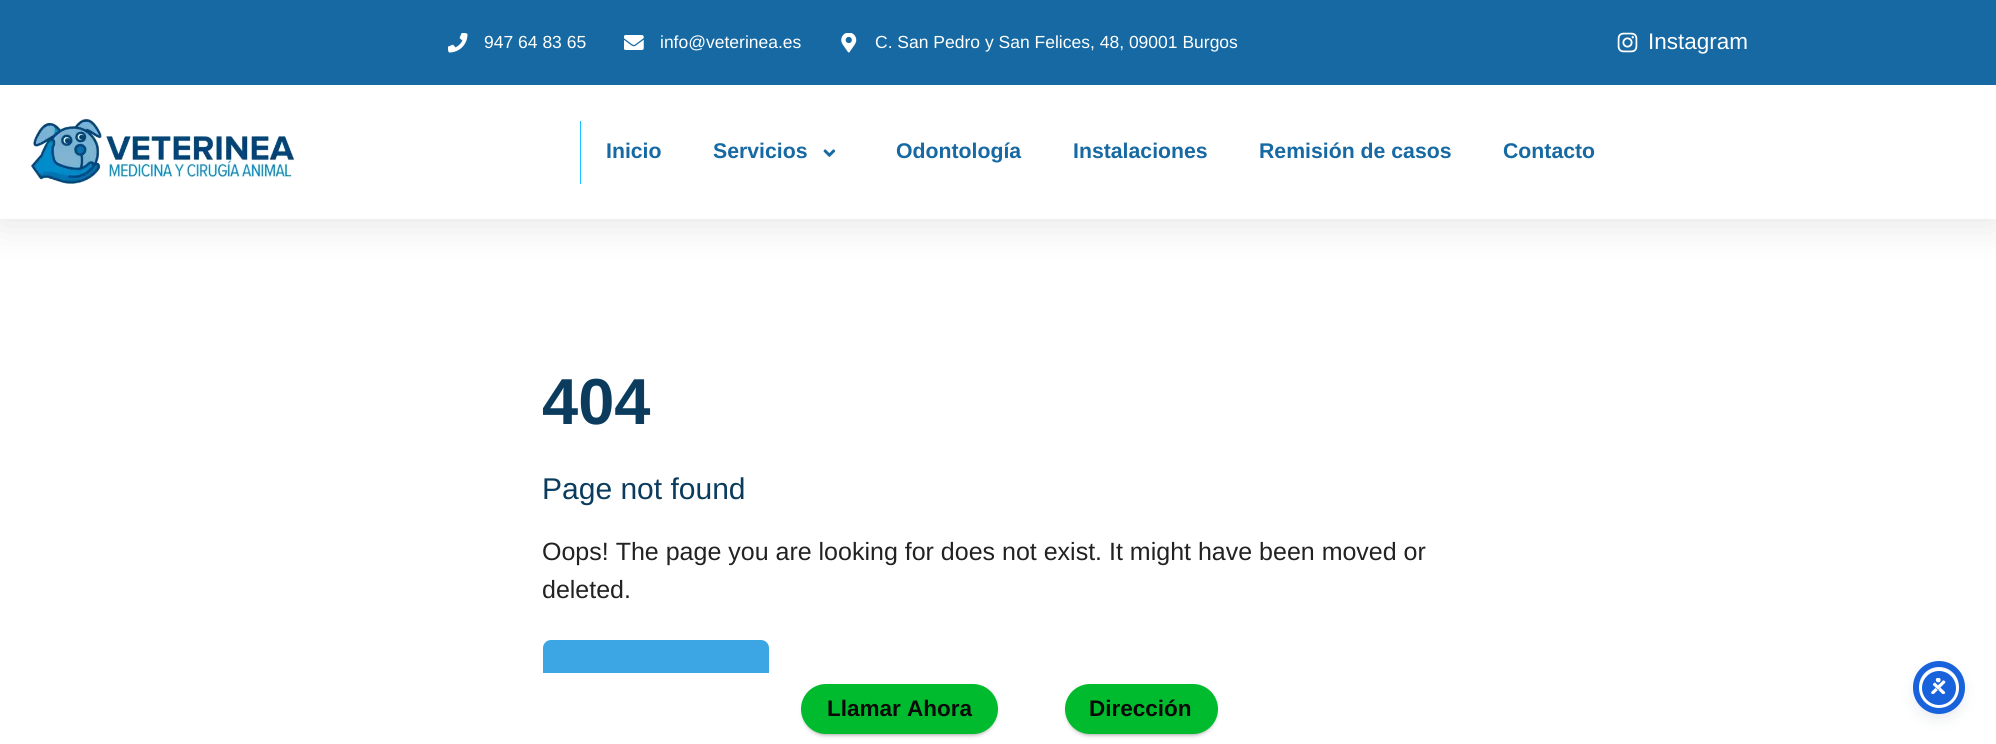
import math
import cairo

surface = cairo.ImageSurface(cairo.FORMAT_RGB24, 1996, 744)
ctx = cairo.Context(surface)
options = cairo.FontOptions()
options.set_hint_metrics(cairo.HINT_METRICS_OFF)
options.set_hint_style(cairo.HINT_STYLE_NONE)
ctx.set_font_options(options)
ctx.set_miter_limit(4)


def round_rect(x, y, w, h, r):
    ctx.new_sub_path()
    for i, (u, v) in enumerate([(x + w - r, y + h - r), (x + r, y + h - r), (x + r, y + r), (x + w - r, y + r)]):
        ctx.arc(u, v, r, i * math.pi / 2, (i + 1) * math.pi / 2)
    ctx.close_path()


def shadow(x, y, w, h, r, blur, alpha):
    ctx.push_group_with_content(cairo.CONTENT_ALPHA)
    ctx.set_operator(cairo.OPERATOR_SOURCE)
    for i in range(15, -16, -2):
        e = blur * i / 6
        if min(w, h) + 2 * e > 0:
            ctx.set_source_rgba(0, 0, 0, alpha * math.erfc((i - 1) / 8.5) / 2)
            round_rect(x - e, y - e, w + 2 * e, h + 2 * e, max(0, min(r + e + blur * .6, min(w, h) / 2 + e)))
            ctx.fill()
    ctx.mask(ctx.pop_group())


def picture(path, x, y, w, h):
    ctx.save()
    ctx.set_source_surface(cairo.ImageSurface.create_from_png(path), x, y)
    ctx.rectangle(x, y, w, h)
    ctx.fill()
    ctx.restore()


ctx.set_source_rgb(1, 1, 1)
ctx.paint()
ctx.set_source_rgb(0, 0, 0)
shadow(0, 6, 1996, 219, 0, 19, 0.1)
ctx.set_source_rgb(0.086, 0.412, 0.635)
ctx.rectangle(0, 0, 1996, 85)
ctx.fill()
picture("img1.png", 448, 33, 20, 20)
ctx.select_font_face("Liberation Sans")
ctx.set_font_size(17.5)
ctx.set_source_rgb(1, 1, 1)
ctx.move_to(484, 48)
ctx.show_text("947 64 83 65")
picture("img2.png", 624, 35, 20, 15)
ctx.move_to(660, 48)
ctx.show_text("info@veterinea.es")
picture("img3.png", 841, 33, 16, 20)
ctx.move_to(875, 48)
ctx.show_text("C. San Pedro y San Felices, 48, 09001 Burgos")
picture("img4.png", 1617, 32, 21, 21)
ctx.set_font_size(22.5)
ctx.move_to(1648, 49)
ctx.show_text("Instagram")
ctx.rectangle(0, 85, 1996, 134)
ctx.fill()
picture("img5.png", 31, 118, 263, 67)
ctx.set_source_rgb(0.106, 0.757, 1)
ctx.rectangle(580, 121, 1, 63)
ctx.fill()
ctx.select_font_face("Liberation Sans", cairo.FONT_SLANT_NORMAL, cairo.FONT_WEIGHT_BOLD)
ctx.set_font_size(21.25)
ctx.set_source_rgb(0.086, 0.412, 0.635)
ctx.move_to(606, 158)
ctx.show_text("Inicio")
ctx.move_to(713, 158)
ctx.show_text("Servicios")
picture("img6.png", 823, 149, 13, 8)
ctx.move_to(896, 158)
ctx.show_text("Odontología")
ctx.move_to(1073, 158)
ctx.show_text("Instalaciones")
ctx.move_to(1259, 158)
ctx.show_text("Remisión de casos")
ctx.move_to(1503, 158)
ctx.show_text("Contacto")
ctx.set_font_size(65)
ctx.set_source_rgb(0.043, 0.235, 0.365)
ctx.move_to(542, 424)
ctx.show_text("404")
ctx.select_font_face("Liberation Sans")
ctx.set_font_size(30)
ctx.move_to(542, 499)
ctx.show_text("Page not found")
ctx.set_font_size(25)
ctx.set_source_rgb(0.133, 0.133, 0.133)
ctx.move_to(542, 560)
ctx.show_text("Oops! The page you are looking for does not exist. It might have been moved or")
ctx.move_to(542, 598)
ctx.show_text("deleted.")
ctx.set_source_rgb(0.235, 0.651, 0.898)
round_rect(543, 640, 226, 66, 8)
ctx.fill()
ctx.set_source_rgb(1, 1, 1)
ctx.rectangle(543, 673, 226, 33)
ctx.fill()
ctx.set_source_rgb(0, 0, 0)
shadow(804, 689, 191, 45, 22.5, 2.5, 0.5)
ctx.set_source_rgb(0, 0.733, 0.176)
round_rect(802.5, 685.5, 194, 47, 23.5)
ctx.fill_preserve()
ctx.set_line_width(3)
ctx.stroke()
ctx.select_font_face("Liberation Sans", cairo.FONT_SLANT_NORMAL, cairo.FONT_WEIGHT_BOLD)
ctx.set_font_size(22.5)
ctx.set_source_rgb(0.039, 0.039, 0.039)
ctx.move_to(827, 716)
ctx.show_text("Llamar Ahora")
ctx.set_source_rgb(0, 0, 0)
shadow(1068, 689, 147, 45, 22.5, 2.5, 0.5)
ctx.set_source_rgb(0, 0.733, 0.176)
round_rect(1066.5, 685.5, 150, 47, 23.5)
ctx.fill_preserve()
ctx.stroke()
ctx.set_source_rgb(0.039, 0.039, 0.039)
ctx.move_to(1089, 716)
ctx.show_text("Dirección")
ctx.set_source_rgb(0.365, 0.392, 0.58)
shadow(1919, 670, 40, 40, 20, 2.5, 0.2)
ctx.set_source_rgb(0.145, 0.173, 0.38)
shadow(1919, 674, 40, 40, 20, 9.5, 0.15)
ctx.set_source_rgb(0.094, 0.388, 0.863)
ctx.arc(1939, 688, 18.5, 0, 2 * math.pi)
ctx.fill_preserve()
ctx.set_source_rgb(1, 1, 1)
ctx.stroke()
round_rect(1916, 664, 46, 47, 23)
ctx.set_source_rgb(0.094, 0.388, 0.863)
ctx.set_line_width(6)
ctx.stroke()
picture("img7.png", 1931, 678, 15, 16)
surface.write_to_png("page.png")
